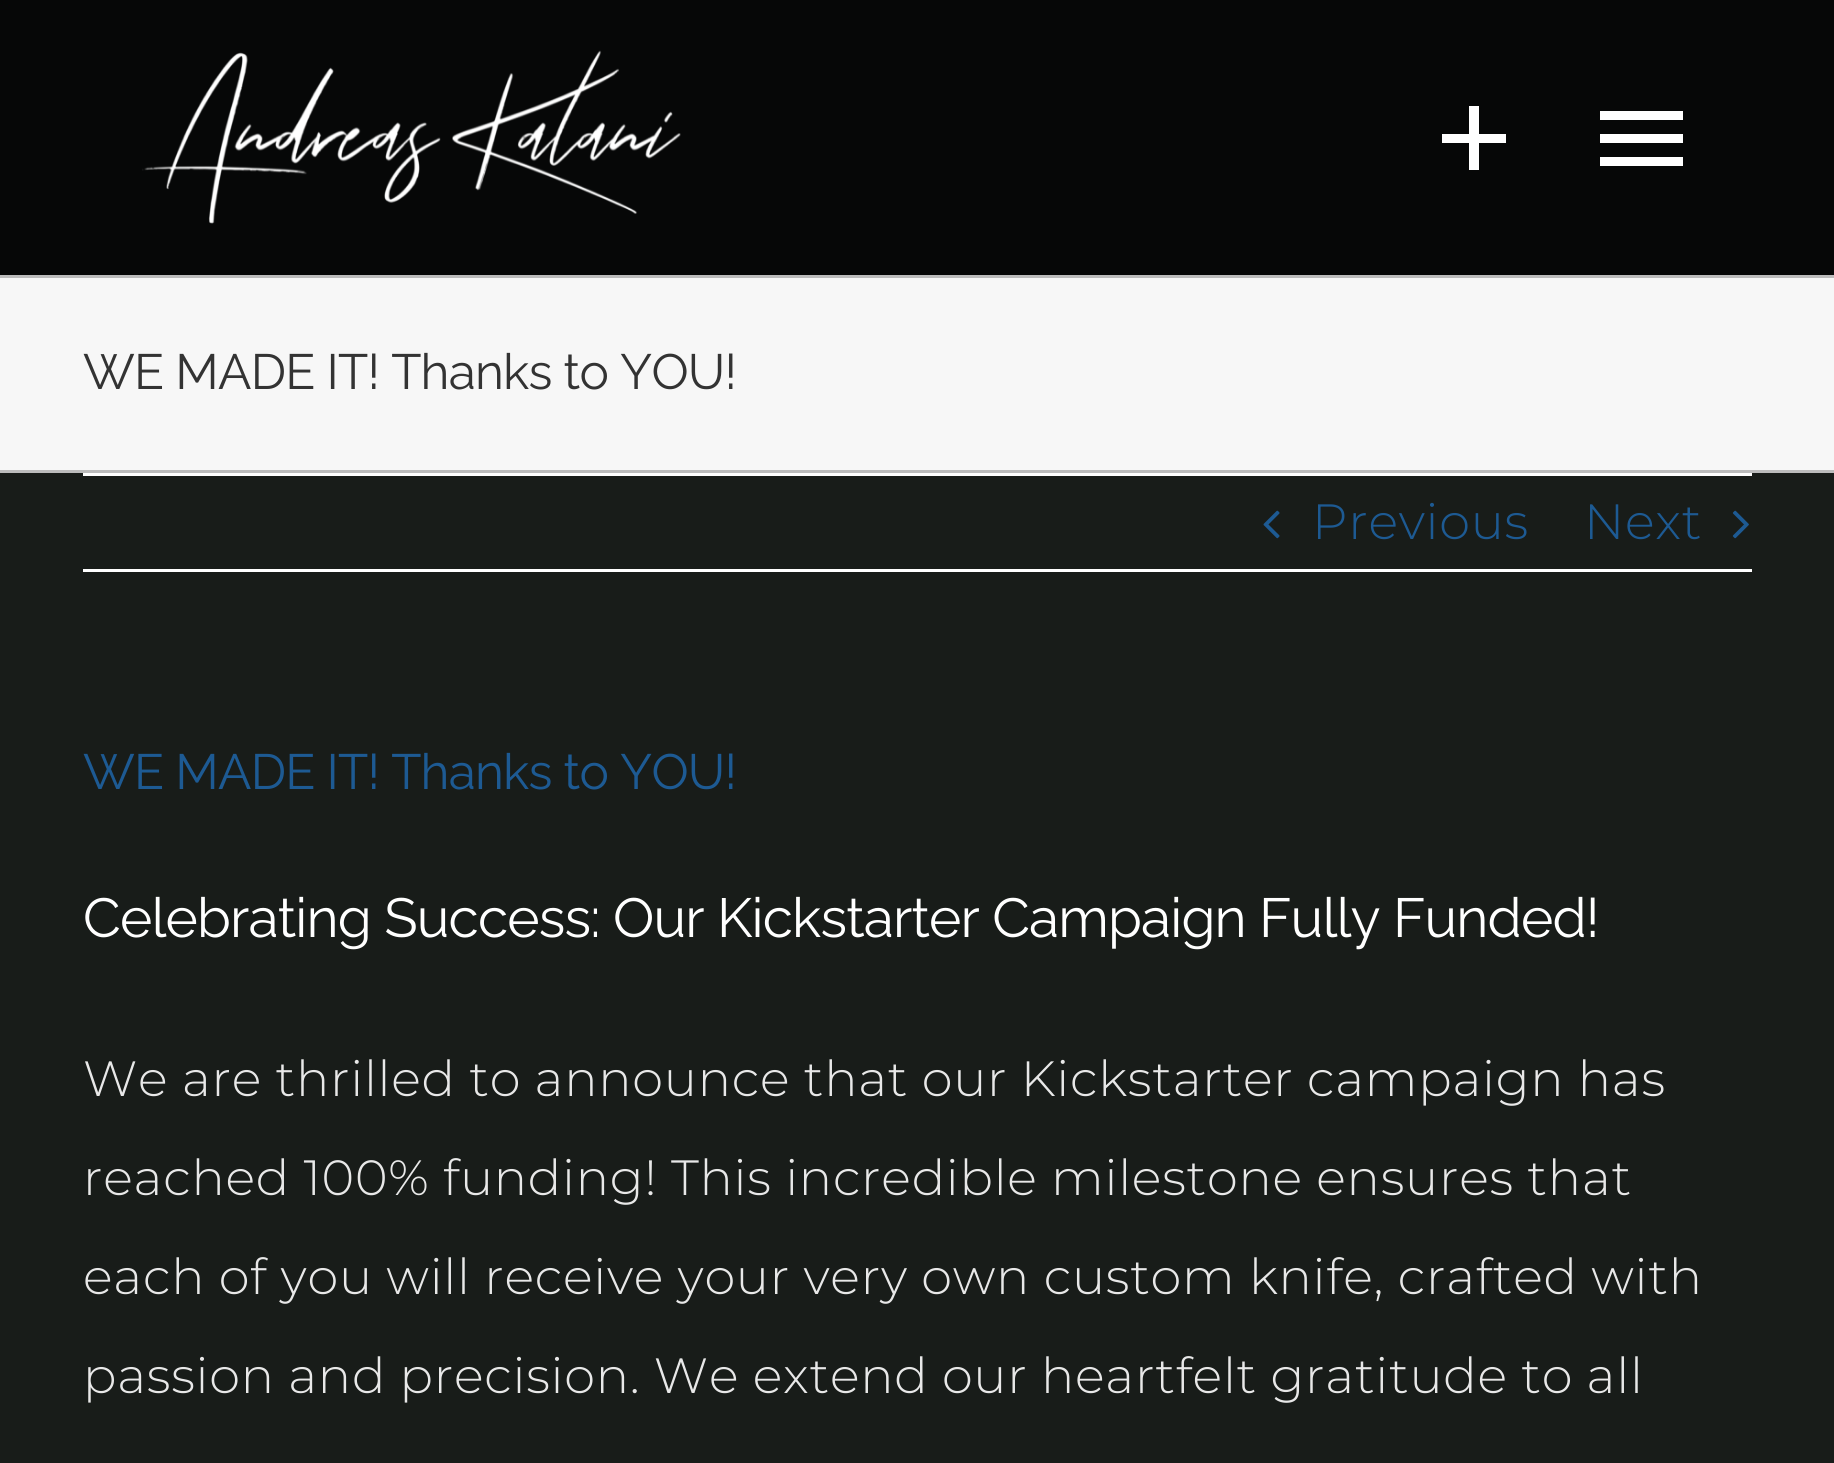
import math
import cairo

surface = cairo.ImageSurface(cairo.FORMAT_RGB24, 1834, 1463)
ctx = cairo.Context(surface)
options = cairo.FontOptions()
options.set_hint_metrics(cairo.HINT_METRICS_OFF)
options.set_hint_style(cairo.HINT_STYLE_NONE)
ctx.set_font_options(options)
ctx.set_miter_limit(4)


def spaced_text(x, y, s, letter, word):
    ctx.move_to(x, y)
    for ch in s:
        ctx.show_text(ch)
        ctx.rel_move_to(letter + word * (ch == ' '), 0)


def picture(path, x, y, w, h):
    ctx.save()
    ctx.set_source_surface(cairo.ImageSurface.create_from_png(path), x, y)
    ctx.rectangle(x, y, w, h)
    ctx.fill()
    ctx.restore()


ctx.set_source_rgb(0.094, 0.11, 0.098)
ctx.paint()
ctx.set_source_rgb(0.027, 0.031, 0.031)
ctx.rectangle(0, 0, 1834, 275)
ctx.fill()
picture("img1.png", 142, 50, 539, 174)
ctx.set_source_rgb(1, 1, 1)
ctx.new_path()
ctx.move_to(1506, 143)
ctx.line_to(1479, 143)
ctx.line_to(1479, 170)
ctx.line_to(1469, 170)
ctx.line_to(1469, 143)
ctx.line_to(1442, 143)
ctx.line_to(1442, 134)
ctx.line_to(1469, 134)
ctx.line_to(1469, 106)
ctx.line_to(1479, 106)
ctx.line_to(1479, 134)
ctx.line_to(1506, 134)
ctx.close_path()
ctx.fill()
ctx.new_path()
ctx.move_to(1600, 111)
ctx.line_to(1683, 111)
ctx.line_to(1683, 120)
ctx.line_to(1600, 120)
ctx.close_path()
ctx.move_to(1600, 143)
ctx.line_to(1600, 134)
ctx.line_to(1683, 134)
ctx.line_to(1683, 143)
ctx.close_path()
ctx.move_to(1600, 166)
ctx.line_to(1600, 157)
ctx.line_to(1683, 157)
ctx.line_to(1683, 166)
ctx.close_path()
ctx.fill()
ctx.set_source_rgb(0.965, 0.965, 0.965)
ctx.rectangle(0, 278, 1834, 192)
ctx.fill()
ctx.set_source_rgb(0.737, 0.737, 0.737)
ctx.rectangle(0, 275, 1834, 3)
ctx.fill()
ctx.rectangle(0, 470, 1834, 3)
ctx.fill()
ctx.select_font_face("Raleway Thin")
ctx.set_font_size(49.5)
ctx.set_source_rgb(0.2, 0.2, 0.2)
spaced_text(83, 389, "WE MADE IT! Thanks to YOU!", -0.75, 0)
ctx.set_source_rgb(1, 1, 1)
ctx.rectangle(83, 473, 1669, 3)
ctx.fill()
ctx.rectangle(83, 569, 1669, 3)
ctx.fill()
picture("img2.png", 1263, 510, 17, 29)
ctx.select_font_face("Montserrat Light")
ctx.set_source_rgb(0.114, 0.353, 0.576)
spaced_text(1312, 539, "Previous", 0.75, 0)
spaced_text(1584, 539, "Next", 0.75, 0)
picture("img3.png", 1732, 510, 17, 29)
ctx.select_font_face("Raleway Thin")
spaced_text(83, 789, "WE MADE IT! Thanks to YOU!", -0.75, 0)
ctx.set_font_size(55)
ctx.set_source_rgb(1, 1, 1)
spaced_text(83, 937, "Celebrating Success: Our Kickstarter Campaign Fully Funded!", -0.82, 0)
ctx.select_font_face("Montserrat Light")
ctx.set_font_size(49.5)
ctx.set_source_rgb(0.91, 0.91, 0.91)
spaced_text(83, 1096, "We are thrilled to announce that our Kickstarter campaign has", 0.75, 0)
spaced_text(83, 1195, "reached 100% funding! This incredible milestone ensures that", 0.75, 0)
spaced_text(83, 1294, "each of you will receive your very own custom knife, crafted with", 0.75, 0)
spaced_text(83, 1393, "passion and precision. We extend our heartfelt gratitude to all", 0.75, 0)
surface.write_to_png("page.png")
